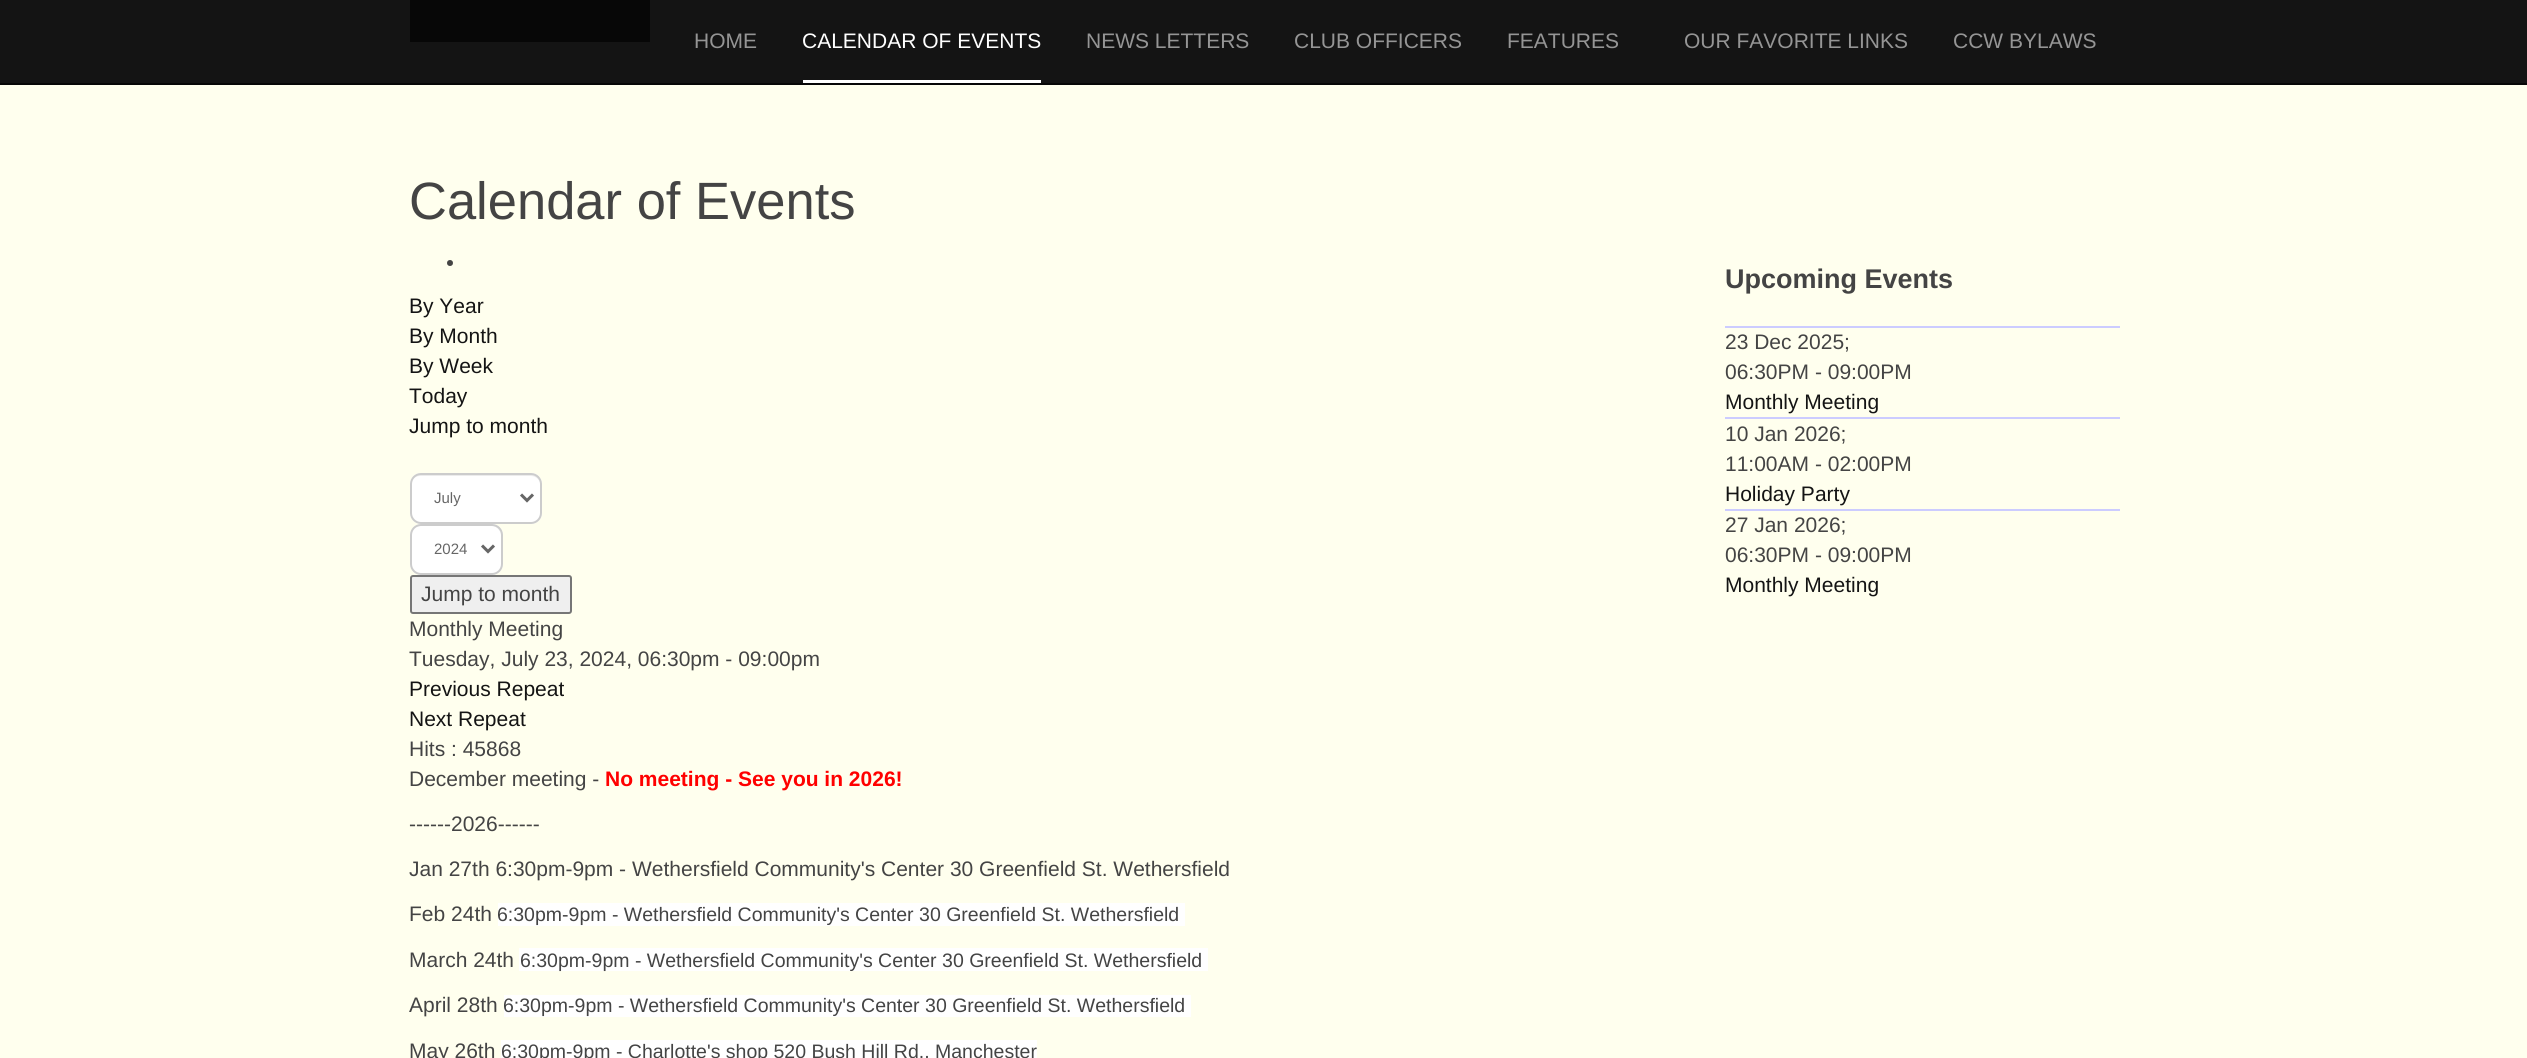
import math
import cairo

surface = cairo.ImageSurface(cairo.FORMAT_RGB24, 2527, 1058)
ctx = cairo.Context(surface)
options = cairo.FontOptions()
options.set_hint_metrics(cairo.HINT_METRICS_OFF)
options.set_hint_style(cairo.HINT_STYLE_NONE)
ctx.set_font_options(options)
ctx.set_miter_limit(4)


def round_rect(x, y, w, h, r):
    ctx.new_sub_path()
    for i, (u, v) in enumerate([(x + w - r, y + h - r), (x + r, y + h - r), (x + r, y + r), (x + w - r, y + r)]):
        ctx.arc(u, v, r, i * math.pi / 2, (i + 1) * math.pi / 2)
    ctx.close_path()


ctx.set_source_rgb(1, 1, 0.933)
ctx.paint()
ctx.set_source_rgb(0.082, 0.082, 0.082)
ctx.rectangle(0, 0, 2527, 83)
ctx.fill()
ctx.set_source_rgb(0.031, 0.031, 0.031)
ctx.rectangle(0, 83, 2527, 2)
ctx.fill()
ctx.rectangle(410, 0, 240, 42)
ctx.fill()
ctx.select_font_face("Liberation Sans")
ctx.set_font_size(21)
ctx.set_source_rgb(0.584, 0.584, 0.584)
ctx.move_to(694, 48)
ctx.show_text("HOME")
ctx.set_source_rgb(1, 1, 1)
ctx.rectangle(803, 80, 238, 3)
ctx.fill()
ctx.move_to(802, 48)
ctx.show_text("CALENDAR OF EVENTS")
ctx.set_source_rgb(0.584, 0.584, 0.584)
ctx.move_to(1086, 48)
ctx.show_text("NEWS LETTERS")
ctx.move_to(1294, 48)
ctx.show_text("CLUB OFFICERS")
ctx.move_to(1507, 48)
ctx.show_text("FEATURES")
ctx.move_to(1684, 48)
ctx.show_text("OUR FAVORITE LINKS")
ctx.move_to(1953, 48)
ctx.show_text("CCW BYLAWS")
ctx.set_font_size(52.5)
ctx.set_source_rgb(0.267, 0.267, 0.267)
ctx.move_to(409, 219)
ctx.show_text("Calendar of Events")
ctx.new_path()
ctx.arc(450, 263, 3, 0, 2 * math.pi)
ctx.fill()
ctx.set_font_size(21)
ctx.set_source_rgb(0.082, 0.082, 0.082)
ctx.move_to(409, 313)
ctx.show_text("By Year")
ctx.move_to(409, 343)
ctx.show_text("By Month")
ctx.move_to(409, 373)
ctx.show_text("By Week")
ctx.move_to(409, 403)
ctx.show_text("Today")
ctx.move_to(409, 433)
ctx.show_text("Jump to month")
ctx.set_source_rgb(1, 1, 1)
round_rect(410, 473, 132, 51, 11)
ctx.fill()
ctx.set_source_rgb(0.925, 0.925, 0.925)
ctx.new_path()
ctx.move_to(420, 476)
ctx.line_to(531, 476)
ctx.curve_to(536, 476, 540, 480, 540, 484)
ctx.curve_to(540, 470, 521, 474, 512, 474)
ctx.line_to(438, 474)
ctx.curve_to(430, 474, 411, 470, 411, 484)
ctx.curve_to(411, 480, 415, 476, 420, 476)
ctx.close_path()
ctx.fill()
round_rect(411, 474, 130, 49, 10)
ctx.set_source_rgb(0.8, 0.8, 0.8)
ctx.stroke()
ctx.new_path()
ctx.move_to(521, 494.5)
ctx.line_to(527, 500.5)
ctx.line_to(533, 494.5)
ctx.set_source_rgb(0.4, 0.4, 0.4)
ctx.set_line_width(3)
ctx.stroke()
ctx.set_font_size(15)
ctx.move_to(434, 503)
ctx.show_text("July")
ctx.set_source_rgb(1, 1, 1)
round_rect(410, 524, 93, 51, 11)
ctx.fill()
ctx.set_source_rgb(0.925, 0.925, 0.925)
ctx.new_path()
ctx.move_to(420, 526)
ctx.line_to(492, 526)
ctx.curve_to(497, 526, 501, 531, 501, 536)
ctx.curve_to(501, 523, 490, 525, 480, 525)
ctx.line_to(432, 525)
ctx.curve_to(422, 525, 411, 523, 411, 536)
ctx.curve_to(411, 531, 415, 526, 420, 526)
ctx.close_path()
ctx.fill()
round_rect(411, 525, 91, 49, 10)
ctx.set_source_rgb(0.8, 0.8, 0.8)
ctx.set_line_width(2)
ctx.stroke()
ctx.new_path()
ctx.move_to(482, 545.5)
ctx.line_to(488, 551.5)
ctx.line_to(494, 545.5)
ctx.set_source_rgb(0.4, 0.4, 0.4)
ctx.set_line_width(3)
ctx.stroke()
ctx.move_to(434, 554)
ctx.show_text("2024")
ctx.set_source_rgb(0.937, 0.937, 0.937)
round_rect(411, 576, 160, 37, 2)
ctx.fill_preserve()
ctx.set_source_rgb(0.463, 0.463, 0.463)
ctx.set_line_width(2)
ctx.stroke()
ctx.set_font_size(21)
ctx.set_source_rgb(0.267, 0.267, 0.267)
ctx.move_to(421, 601)
ctx.show_text("Jump to month")
ctx.move_to(409, 636)
ctx.show_text("Monthly Meeting")
ctx.move_to(409, 666)
ctx.show_text("Tuesday, July 23, 2024, 06:30pm - 09:00pm")
ctx.set_source_rgb(0.082, 0.082, 0.082)
ctx.move_to(409, 696)
ctx.show_text("Previous Repeat")
ctx.move_to(409, 726)
ctx.show_text("Next Repeat")
ctx.set_source_rgb(0.267, 0.267, 0.267)
ctx.move_to(409, 756)
ctx.show_text("Hits : 45868")
ctx.move_to(409, 786)
ctx.show_text("December meeting -")
ctx.select_font_face("Liberation Sans", cairo.FONT_SLANT_NORMAL, cairo.FONT_WEIGHT_BOLD)
ctx.set_source_rgb(1, 0, 0)
ctx.move_to(605, 786)
ctx.show_text("No meeting - See you in 2026!")
ctx.select_font_face("Liberation Sans")
ctx.set_source_rgb(0.267, 0.267, 0.267)
ctx.move_to(409, 831)
ctx.show_text("------2026------")
ctx.move_to(409, 876)
ctx.show_text("Jan 27th 6:30pm-9pm - Wethersfield Community's Center 30 Greenfield St. Wethersfield")
ctx.move_to(409, 921)
ctx.show_text("Feb 24th")
ctx.set_source_rgb(1, 1, 1)
ctx.rectangle(498, 903, 687, 23)
ctx.fill()
ctx.set_font_size(19.5)
ctx.set_source_rgb(0.267, 0.267, 0.267)
ctx.move_to(497, 921)
ctx.show_text("6:30pm-9pm - Wethersfield Community's Center 30 Greenfield St. Wethersfield")
ctx.set_font_size(21)
ctx.move_to(409, 967)
ctx.show_text("March 24th")
ctx.set_source_rgb(1, 1, 1)
ctx.rectangle(519, 948, 689, 23)
ctx.fill()
ctx.set_font_size(19.5)
ctx.set_source_rgb(0.267, 0.267, 0.267)
ctx.move_to(520, 967)
ctx.show_text("6:30pm-9pm - Wethersfield Community's Center 30 Greenfield St. Wethersfield")
ctx.set_font_size(21)
ctx.move_to(409, 1012)
ctx.show_text("April 28th")
ctx.set_source_rgb(1, 1, 1)
ctx.rectangle(504, 995, 687, 22)
ctx.fill()
ctx.set_font_size(19.5)
ctx.set_source_rgb(0.267, 0.267, 0.267)
ctx.move_to(503, 1012)
ctx.show_text("6:30pm-9pm - Wethersfield Community's Center 30 Greenfield St. Wethersfield")
ctx.set_font_size(21)
ctx.move_to(409, 1058)
ctx.show_text("May 26th")
ctx.set_source_rgb(1, 1, 1)
ctx.rectangle(501, 1040, 536, 18)
ctx.fill()
ctx.set_font_size(19.5)
ctx.set_source_rgb(0.267, 0.267, 0.267)
ctx.move_to(501, 1058)
ctx.show_text("6:30pm-9pm - Charlotte's shop 520 Bush Hill Rd., Manchester")
ctx.select_font_face("Liberation Sans", cairo.FONT_SLANT_NORMAL, cairo.FONT_WEIGHT_BOLD)
ctx.set_font_size(27)
ctx.move_to(1725, 288)
ctx.show_text("Upcoming Events")
ctx.set_source_rgb(0.8, 0.8, 1)
ctx.rectangle(1725, 326, 395, 2)
ctx.fill()
ctx.select_font_face("Liberation Sans")
ctx.set_font_size(21)
ctx.set_source_rgb(0.267, 0.267, 0.267)
ctx.move_to(1725, 349)
ctx.show_text("23 Dec 2025;")
ctx.move_to(1725, 379)
ctx.show_text("06:30PM - 09:00PM")
ctx.set_source_rgb(0.082, 0.082, 0.082)
ctx.move_to(1725, 409)
ctx.show_text("Monthly Meeting")
ctx.set_source_rgb(0.8, 0.8, 1)
ctx.rectangle(1725, 417, 395, 2)
ctx.fill()
ctx.set_source_rgb(0.267, 0.267, 0.267)
ctx.move_to(1725, 441)
ctx.show_text("10 Jan 2026;")
ctx.move_to(1725, 471)
ctx.show_text("11:00AM - 02:00PM")
ctx.set_source_rgb(0.082, 0.082, 0.082)
ctx.move_to(1725, 501)
ctx.show_text("Holiday Party")
ctx.set_source_rgb(0.8, 0.8, 1)
ctx.rectangle(1725, 509, 395, 2)
ctx.fill()
ctx.set_source_rgb(0.267, 0.267, 0.267)
ctx.move_to(1725, 532)
ctx.show_text("27 Jan 2026;")
ctx.move_to(1725, 562)
ctx.show_text("06:30PM - 09:00PM")
ctx.set_source_rgb(0.082, 0.082, 0.082)
ctx.move_to(1725, 592)
ctx.show_text("Monthly Meeting")
surface.write_to_png("page.png")
